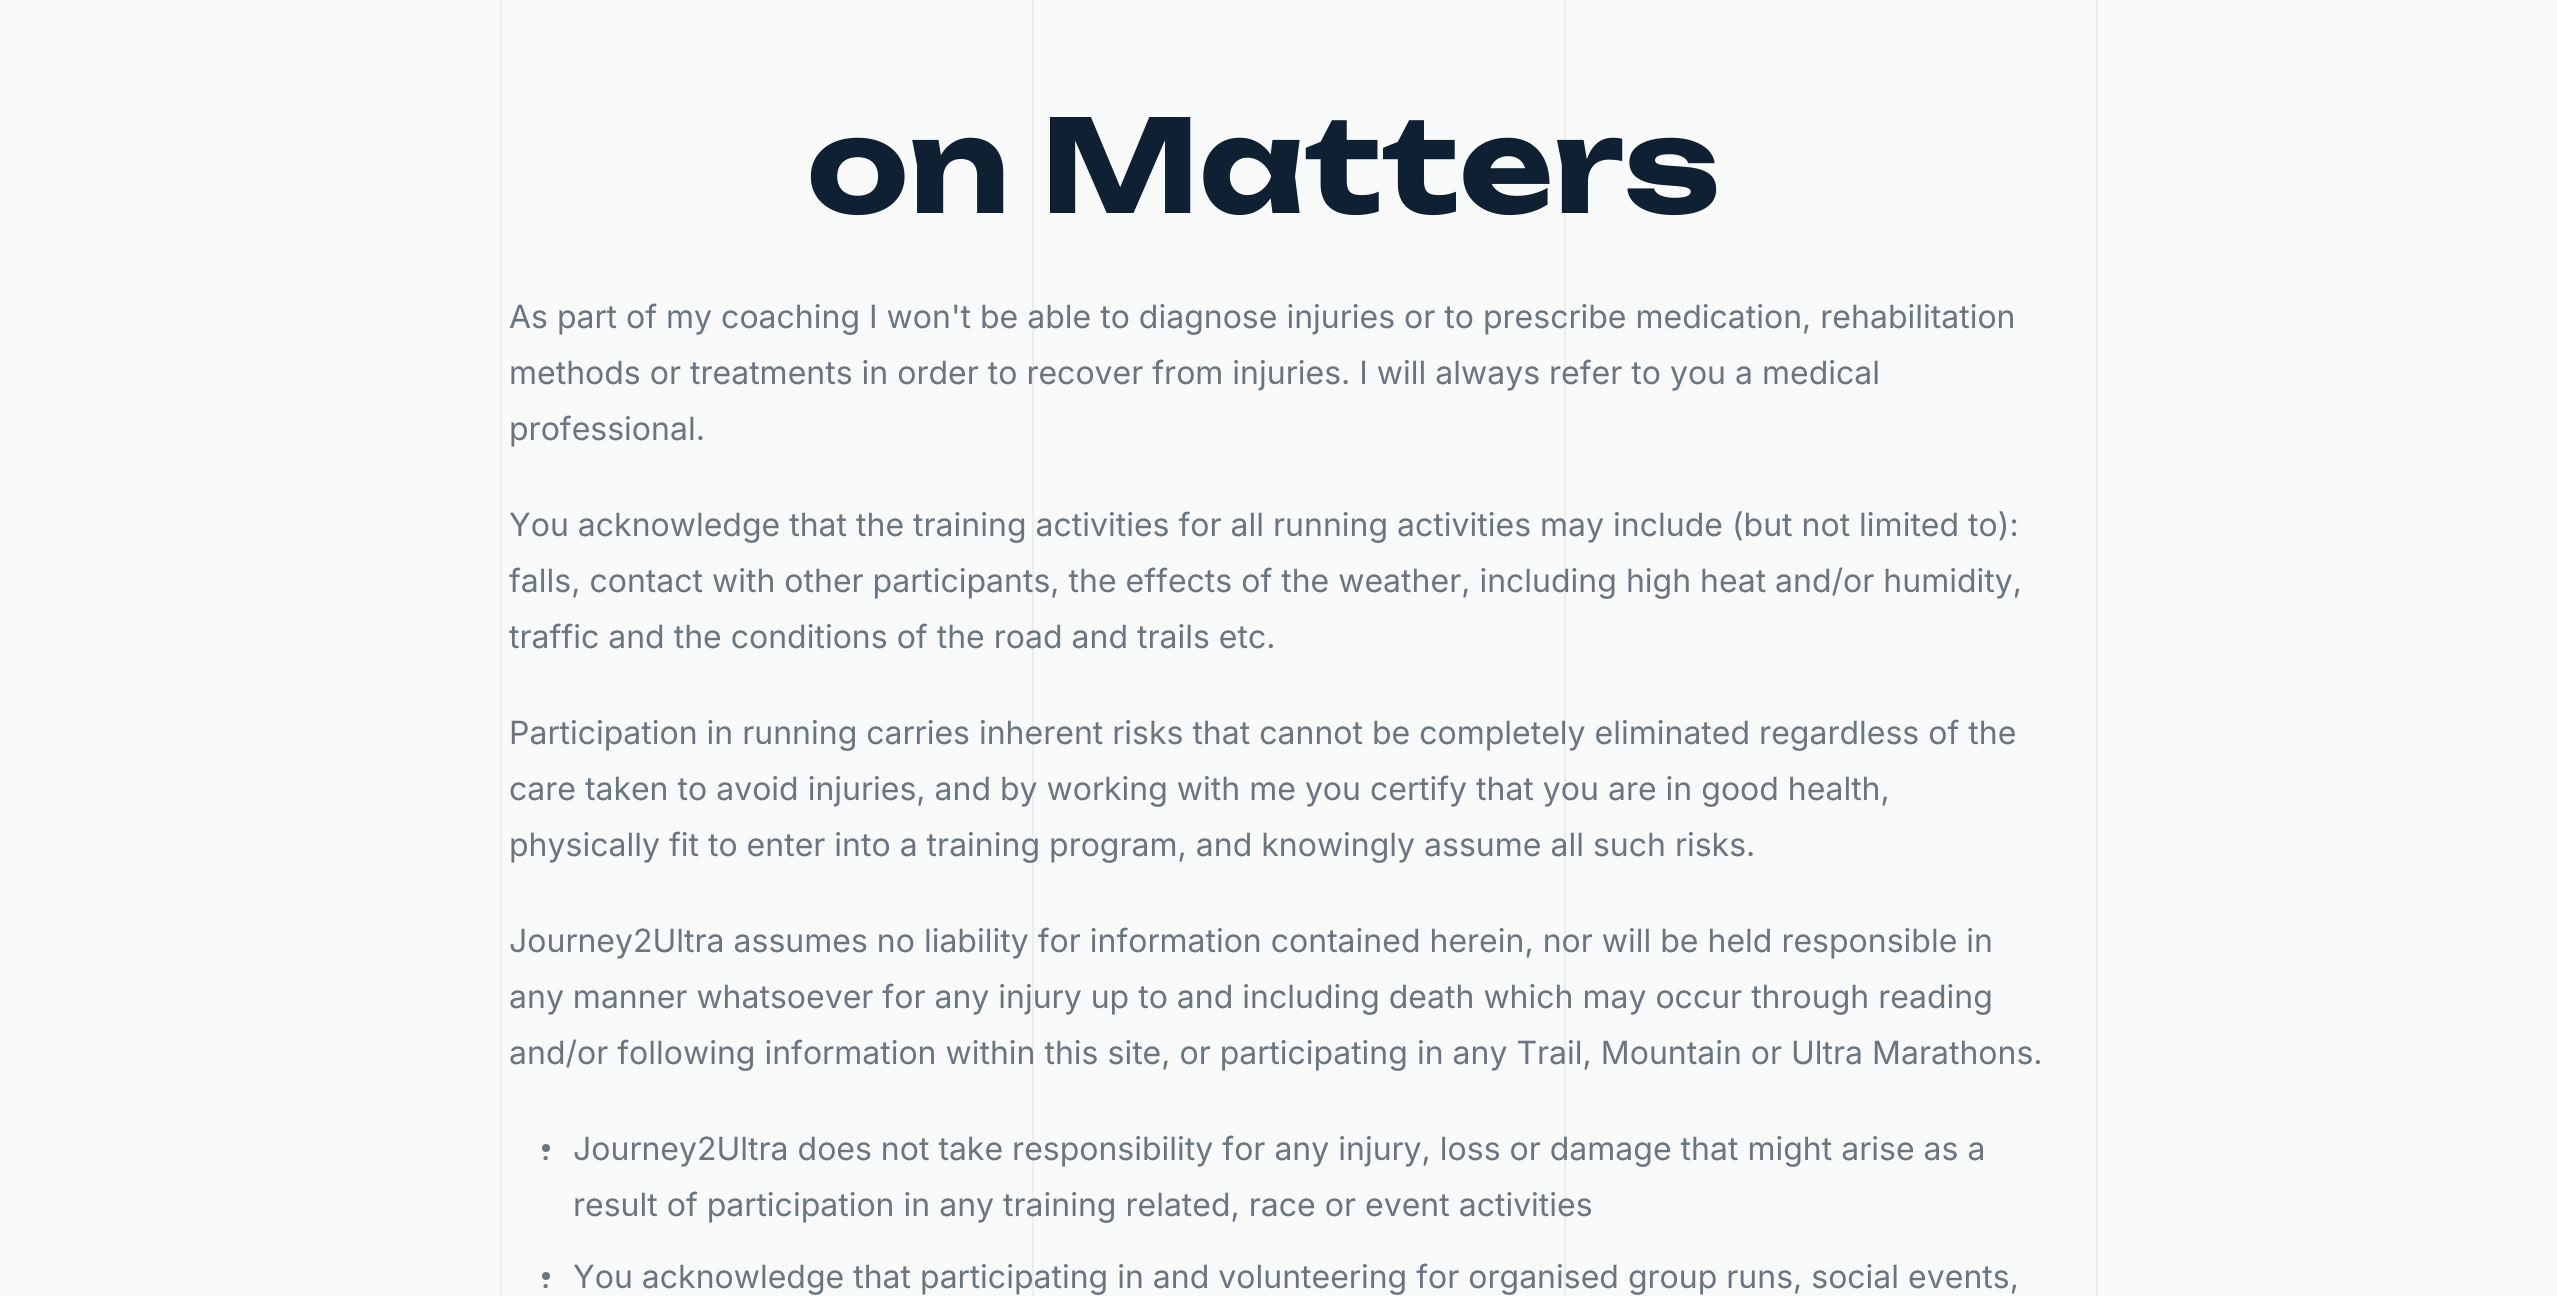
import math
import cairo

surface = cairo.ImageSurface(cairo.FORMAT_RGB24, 2557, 1296)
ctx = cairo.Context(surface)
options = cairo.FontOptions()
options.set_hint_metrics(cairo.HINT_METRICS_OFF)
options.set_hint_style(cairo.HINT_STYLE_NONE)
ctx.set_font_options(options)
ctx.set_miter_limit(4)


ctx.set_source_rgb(0.973, 0.98, 0.98)
ctx.paint()
ctx.set_source_rgb(0.922, 0.929, 0.929)
ctx.rectangle(500, 0, 2, 1296)
ctx.fill()
ctx.rectangle(1032, 0, 2, 1296)
ctx.fill()
ctx.rectangle(1564, 0, 2, 1296)
ctx.fill()
ctx.rectangle(2096, 0, 2, 1296)
ctx.fill()
ctx.select_font_face("Unbounded", cairo.FONT_SLANT_NORMAL, cairo.FONT_WEIGHT_BOLD)
ctx.set_font_size(128)
ctx.set_source_rgb(0.055, 0.125, 0.192)
ctx.move_to(807, 213)
ctx.show_text("on Matters")
ctx.select_font_face("Inter")
ctx.set_font_size(32)
ctx.set_source_rgb(0.412, 0.459, 0.498)
ctx.move_to(509, 328)
ctx.show_text("As part of my coaching I won't be able to diagnose injuries or to prescribe medication, rehabilitation")
ctx.move_to(509, 384)
ctx.show_text("methods or treatments in order to recover from injuries. I will always refer to you a medical")
ctx.move_to(509, 440)
ctx.show_text("professional.")
ctx.move_to(509, 536)
ctx.show_text("You acknowledge that the training activities for all running activities may include (but not limited to):")
ctx.move_to(509, 592)
ctx.show_text("falls, contact with other participants, the effects of the weather, including high heat and/or humidity,")
ctx.move_to(509, 648)
ctx.show_text("traffic and the conditions of the road and trails etc.")
ctx.move_to(509, 744)
ctx.show_text("Participation in running carries inherent risks that cannot be completely eliminated regardless of the")
ctx.move_to(509, 800)
ctx.show_text("care taken to avoid injuries, and by working with me you certify that you are in good health,")
ctx.move_to(509, 856)
ctx.show_text("physically fit to enter into a training program, and knowingly assume all such risks.")
ctx.move_to(509, 952)
ctx.show_text("Journey2Ultra assumes no liability for information contained herein, nor will be held responsible in")
ctx.move_to(509, 1008)
ctx.show_text("any manner whatsoever for any injury up to and including death which may occur through reading")
ctx.move_to(509, 1064)
ctx.show_text("and/or following information within this site, or participating in any Trail, Mountain or Ultra Marathons.")
ctx.new_path()
ctx.arc(546, 1148, 4, 0, 2 * math.pi)
ctx.fill()
ctx.move_to(541, 1160)
ctx.show_text(".")
ctx.move_to(573, 1160)
ctx.show_text("Journey2Ultra does not take responsibility for any injury, loss or damage that might arise as a")
ctx.move_to(573, 1216)
ctx.show_text("result of participation in any training related, race or event activities")
ctx.new_path()
ctx.arc(546, 1276, 4, 0, 2 * math.pi)
ctx.fill()
ctx.move_to(541, 1288)
ctx.show_text(".")
ctx.move_to(573, 1288)
ctx.show_text("You acknowledge that participating in and volunteering for organised group runs, social events,")
surface.write_to_png("page.png")
